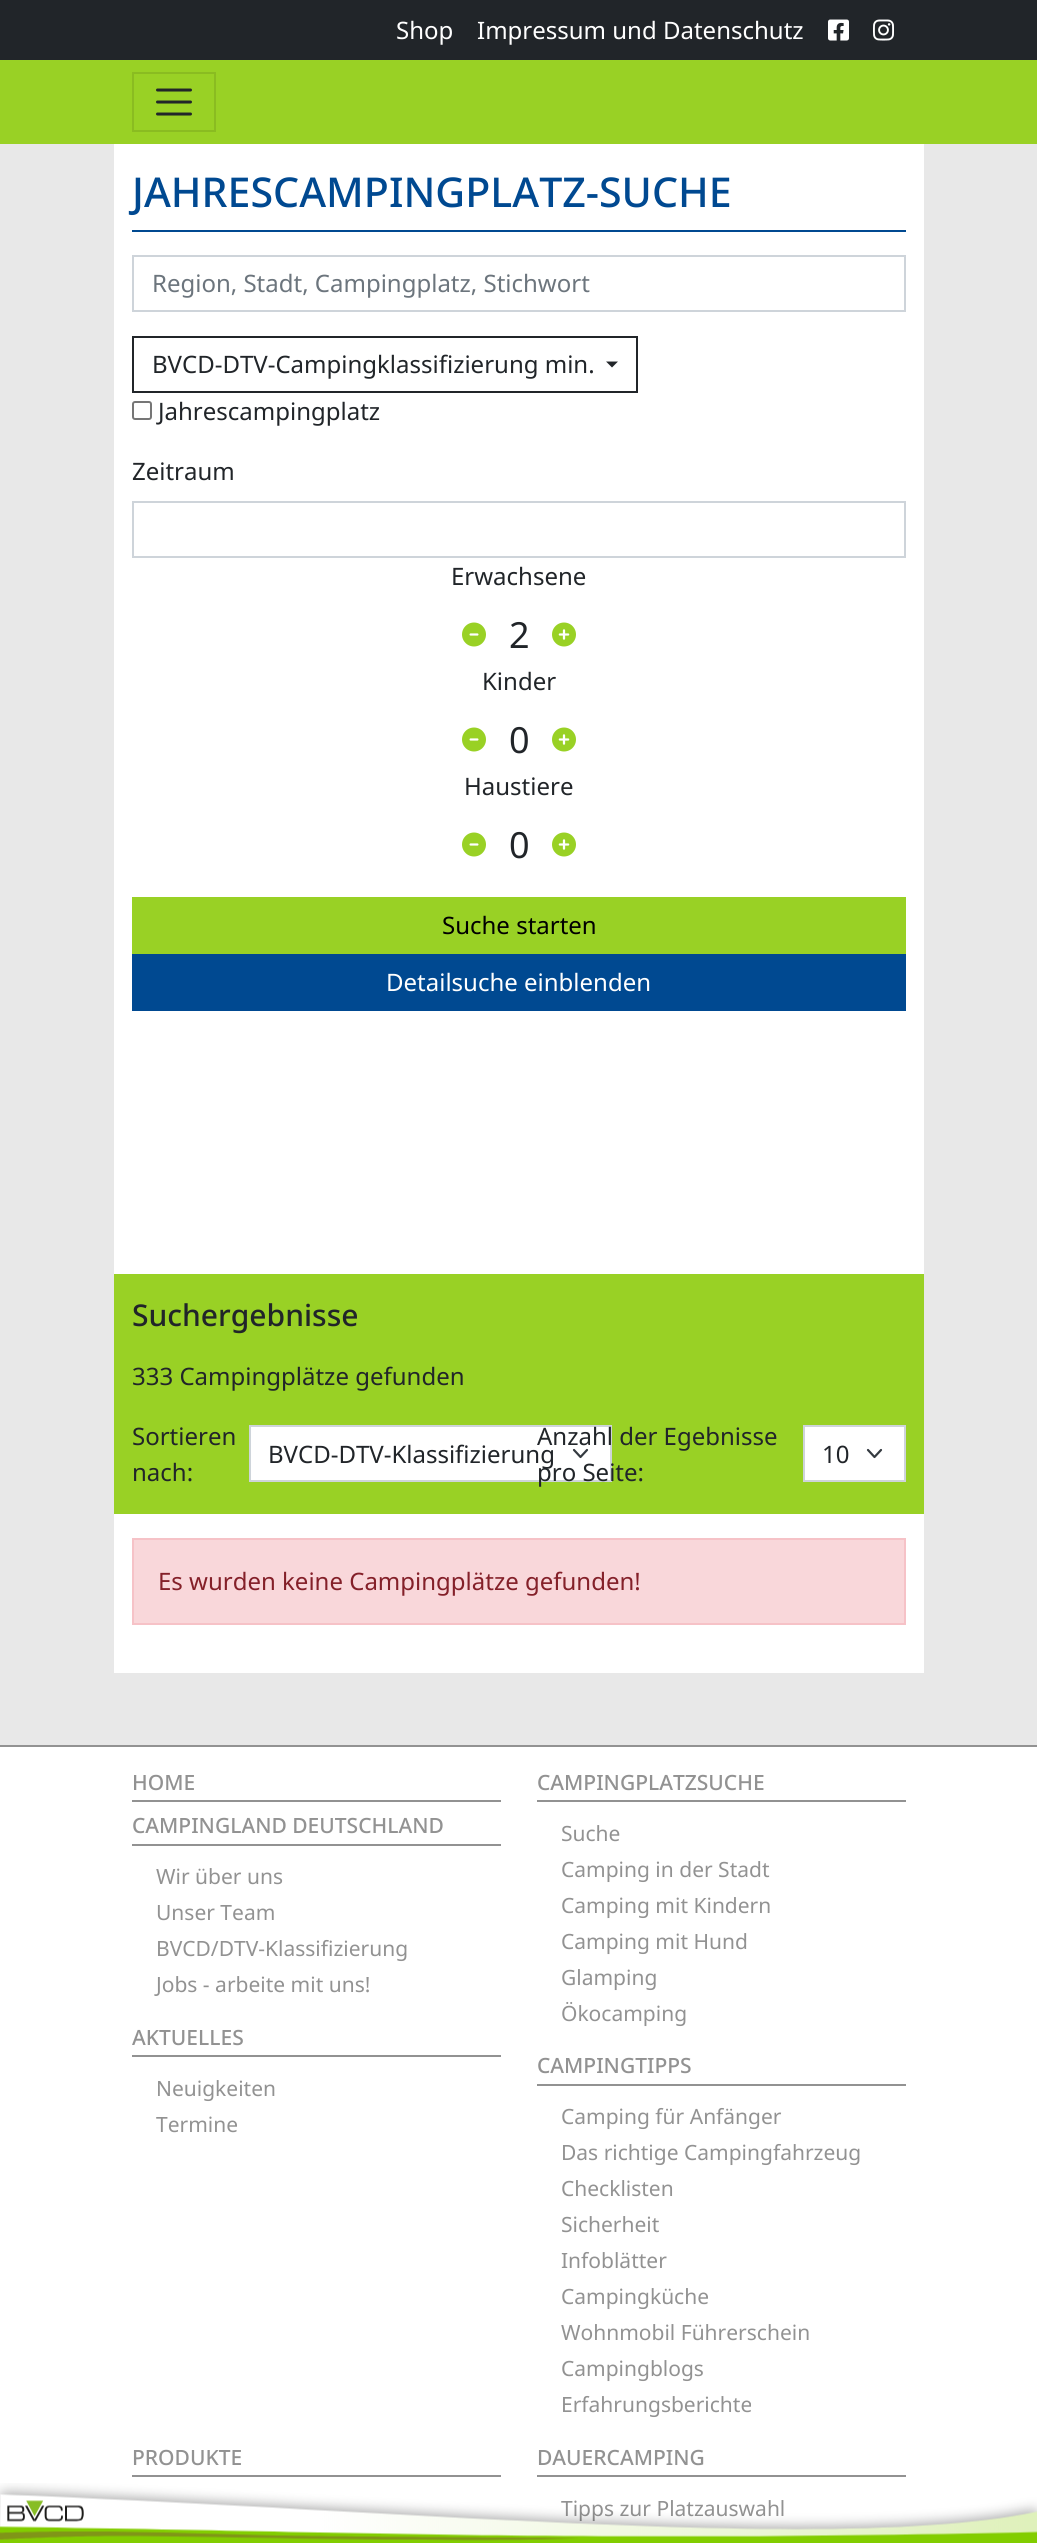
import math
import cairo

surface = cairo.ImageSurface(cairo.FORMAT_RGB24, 1037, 2543)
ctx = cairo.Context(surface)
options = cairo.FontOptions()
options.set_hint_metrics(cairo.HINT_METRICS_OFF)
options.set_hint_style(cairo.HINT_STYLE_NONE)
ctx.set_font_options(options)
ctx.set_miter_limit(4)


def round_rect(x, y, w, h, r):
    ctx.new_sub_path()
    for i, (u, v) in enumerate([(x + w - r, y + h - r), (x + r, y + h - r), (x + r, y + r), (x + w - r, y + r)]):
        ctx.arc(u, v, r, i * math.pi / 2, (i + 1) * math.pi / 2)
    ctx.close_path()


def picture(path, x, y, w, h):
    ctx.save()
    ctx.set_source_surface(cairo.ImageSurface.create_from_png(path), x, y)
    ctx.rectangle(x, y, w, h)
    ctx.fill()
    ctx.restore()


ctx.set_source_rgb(0.91, 0.91, 0.91)
ctx.paint()
ctx.set_source_rgb(0.129, 0.145, 0.161)
ctx.rectangle(0, 0, 1037, 60)
ctx.fill()
ctx.select_font_face("Noto Sans")
ctx.set_font_size(24)
ctx.set_source_rgb(1, 1, 1)
ctx.move_to(396, 39)
ctx.show_text("Shop")
ctx.move_to(477, 39)
ctx.show_text("Impressum und Datenschutz")
picture("img1.png", 828, 19, 21, 22)
picture("img2.png", 873, 19, 21, 22)
ctx.set_source_rgb(0.6, 0.82, 0.145)
ctx.rectangle(0, 60, 1037, 84)
ctx.fill()
ctx.rectangle(133, 73, 82, 58)
ctx.set_source_rgb(0.541, 0.737, 0.129)
ctx.stroke()
ctx.new_path()
ctx.move_to(157.5, 90)
ctx.line_to(190.5, 90)
ctx.move_to(157.5, 102)
ctx.line_to(190.5, 102)
ctx.move_to(157.5, 114)
ctx.line_to(190.5, 114)
ctx.set_source_rgb(0.129, 0.145, 0.161)
ctx.set_line_width(3)
ctx.set_line_cap(cairo.LINE_CAP_ROUND)
ctx.stroke()
ctx.set_source_rgb(1, 1, 1)
ctx.rectangle(114, 144, 810, 1130)
ctx.fill()
ctx.set_source_rgb(0, 0.286, 0.569)
ctx.rectangle(132, 230, 774, 2)
ctx.fill()
ctx.select_font_face("Noto Sans Medium")
ctx.set_font_size(41.1)
ctx.move_to(132, 207)
ctx.show_text("JAHRESCAMPINGPLATZ-SUCHE")
ctx.rectangle(133, 256, 772, 55)
ctx.set_source_rgb(0.808, 0.831, 0.855)
ctx.set_line_width(2)
ctx.set_line_cap(cairo.LINE_CAP_BUTT)
ctx.stroke()
ctx.select_font_face("Noto Sans")
ctx.set_font_size(24)
ctx.set_source_rgb(0.424, 0.459, 0.49)
ctx.move_to(152, 292)
ctx.show_text("Region, Stadt, Campingplatz, Stichwort")
ctx.rectangle(133, 337, 504, 55)
ctx.set_source_rgb(0.129, 0.145, 0.161)
ctx.stroke()
ctx.move_to(152, 373)
ctx.show_text("BVCD-DTV-Campingklassifizierung min.")
ctx.new_path()
ctx.move_to(606, 361.5)
ctx.line_to(618, 361.5)
ctx.line_to(612, 367.5)
ctx.close_path()
ctx.fill()
round_rect(133, 402, 18, 17, 2)
ctx.set_source_rgb(0.463, 0.463, 0.463)
ctx.stroke()
ctx.set_source_rgb(0.129, 0.145, 0.161)
ctx.move_to(158, 420)
ctx.show_text("Jahrescampingplatz")
ctx.move_to(132, 480)
ctx.show_text("Zeitraum")
ctx.rectangle(133, 502, 772, 55)
ctx.set_source_rgb(0.808, 0.831, 0.855)
ctx.stroke()
ctx.set_source_rgb(0.129, 0.145, 0.161)
ctx.move_to(451, 585)
ctx.show_text("Erwachsene")
picture("img3.png", 462, 622, 24, 25)
ctx.set_font_size(36)
ctx.move_to(509, 648)
ctx.show_text("2")
picture("img4.png", 552, 622, 24, 25)
ctx.set_font_size(24)
ctx.move_to(482, 690)
ctx.show_text("Kinder")
picture("img3.png", 462, 727, 24, 25)
ctx.set_font_size(36)
ctx.move_to(509, 753)
ctx.show_text("0")
picture("img4.png", 552, 727, 24, 25)
ctx.set_font_size(24)
ctx.move_to(464, 795)
ctx.show_text("Haustiere")
picture("img3.png", 462, 832, 24, 25)
ctx.set_font_size(36)
ctx.move_to(509, 858)
ctx.show_text("0")
picture("img4.png", 552, 832, 24, 25)
ctx.set_source_rgb(0.6, 0.82, 0.145)
ctx.rectangle(132, 897, 774, 57)
ctx.fill()
ctx.set_font_size(24)
ctx.set_source_rgb(0, 0, 0)
ctx.move_to(442, 934)
ctx.show_text("Suche starten")
ctx.set_source_rgb(0, 0.286, 0.569)
ctx.rectangle(132, 954, 774, 57)
ctx.fill()
ctx.set_source_rgb(1, 1, 1)
ctx.move_to(386, 991)
ctx.show_text("Detailsuche einblenden")
ctx.set_source_rgb(0.6, 0.82, 0.145)
ctx.rectangle(114, 1274, 810, 240)
ctx.fill()
ctx.select_font_face("Noto Sans Medium")
ctx.set_font_size(30)
ctx.set_source_rgb(0.129, 0.145, 0.161)
ctx.move_to(132, 1326)
ctx.show_text("Suchergebnisse")
ctx.select_font_face("Noto Sans")
ctx.set_font_size(24)
ctx.move_to(132, 1385)
ctx.show_text("333 Campingplätze gefunden")
ctx.move_to(132, 1445)
ctx.show_text("Sortieren")
ctx.move_to(132, 1481)
ctx.show_text("nach:")
ctx.set_source_rgb(1, 1, 1)
ctx.rectangle(251, 1427, 359, 53)
ctx.fill()
ctx.new_path()
ctx.move_to(574, 1450)
ctx.line_to(580.5, 1457)
ctx.line_to(587, 1450)
ctx.set_source_rgb(0.204, 0.227, 0.251)
ctx.set_line_width(2.2)
ctx.set_line_cap(cairo.LINE_CAP_ROUND)
ctx.set_line_join(cairo.LINE_JOIN_ROUND)
ctx.stroke()
ctx.rectangle(250, 1426, 361, 55)
ctx.set_source_rgb(0.808, 0.831, 0.855)
ctx.set_line_width(2)
ctx.set_line_cap(cairo.LINE_CAP_BUTT)
ctx.set_line_join(cairo.LINE_JOIN_MITER)
ctx.stroke()
ctx.set_source_rgb(0.129, 0.145, 0.161)
ctx.move_to(268, 1463)
ctx.show_text("BVCD-DTV-Klassifizierung")
ctx.move_to(537, 1445)
ctx.show_text("Anzahl der Egebnisse")
ctx.move_to(537, 1481)
ctx.show_text("pro Seite:")
ctx.set_source_rgb(1, 1, 1)
ctx.rectangle(805, 1427, 99, 53)
ctx.fill()
ctx.new_path()
ctx.move_to(868, 1450)
ctx.line_to(874.5, 1457)
ctx.line_to(881, 1450)
ctx.set_source_rgb(0.204, 0.227, 0.251)
ctx.set_line_width(2.2)
ctx.set_line_cap(cairo.LINE_CAP_ROUND)
ctx.set_line_join(cairo.LINE_JOIN_ROUND)
ctx.stroke()
ctx.rectangle(804, 1426, 101, 55)
ctx.set_source_rgb(0.808, 0.831, 0.855)
ctx.set_line_width(2)
ctx.set_line_cap(cairo.LINE_CAP_BUTT)
ctx.set_line_join(cairo.LINE_JOIN_MITER)
ctx.stroke()
ctx.set_source_rgb(0.129, 0.145, 0.161)
ctx.move_to(822, 1463)
ctx.show_text("10")
ctx.set_source_rgb(1, 1, 1)
ctx.rectangle(114, 1514, 810, 159)
ctx.fill()
ctx.set_source_rgb(0.973, 0.843, 0.855)
ctx.rectangle(133, 1539, 772, 85)
ctx.fill_preserve()
ctx.set_source_rgb(0.961, 0.761, 0.78)
ctx.stroke()
ctx.set_source_rgb(0.518, 0.125, 0.161)
ctx.move_to(158, 1590)
ctx.show_text("Es wurden keine Campingplätze gefunden!")
ctx.set_source_rgb(1, 1, 1)
ctx.rectangle(0, 1747, 1037, 783)
ctx.fill()
ctx.set_source_rgb(0.573, 0.573, 0.573)
ctx.rectangle(0, 1745, 1037, 2)
ctx.fill()
ctx.rectangle(132, 1800, 369, 2)
ctx.fill()
ctx.select_font_face("Noto Sans Medium")
ctx.set_font_size(21)
ctx.move_to(132, 1790)
ctx.show_text("HOME")
ctx.rectangle(132, 1844, 369, 2)
ctx.fill()
ctx.move_to(132, 1833)
ctx.show_text("CAMPINGLAND DEUTSCHLAND")
ctx.select_font_face("Noto Sans")
ctx.move_to(156, 1884)
ctx.show_text("Wir über uns")
ctx.move_to(156, 1920)
ctx.show_text("Unser Team")
ctx.move_to(156, 1956)
ctx.show_text("BVCD/DTV-Klassifizierung")
ctx.move_to(156, 1992)
ctx.show_text("Jobs - arbeite mit uns!")
ctx.rectangle(132, 2055, 369, 2)
ctx.fill()
ctx.select_font_face("Noto Sans Medium")
ctx.move_to(132, 2045)
ctx.show_text("AKTUELLES")
ctx.select_font_face("Noto Sans")
ctx.move_to(156, 2096)
ctx.show_text("Neuigkeiten")
ctx.move_to(156, 2132)
ctx.show_text("Termine")
ctx.rectangle(537, 1800, 369, 2)
ctx.fill()
ctx.select_font_face("Noto Sans Medium")
ctx.move_to(537, 1790)
ctx.show_text("CAMPINGPLATZSUCHE")
ctx.select_font_face("Noto Sans")
ctx.move_to(561, 1841)
ctx.show_text("Suche")
ctx.move_to(561, 1877)
ctx.show_text("Camping in der Stadt")
ctx.move_to(561, 1913)
ctx.show_text("Camping mit Kindern")
ctx.move_to(561, 1949)
ctx.show_text("Camping mit Hund")
ctx.move_to(561, 1985)
ctx.show_text("Glamping")
ctx.move_to(561, 2021)
ctx.show_text("Ökocamping")
ctx.rectangle(537, 2084, 369, 2)
ctx.fill()
ctx.select_font_face("Noto Sans Medium")
ctx.move_to(537, 2073)
ctx.show_text("CAMPINGTIPPS")
ctx.select_font_face("Noto Sans")
ctx.move_to(561, 2124)
ctx.show_text("Camping für Anfänger")
ctx.move_to(561, 2160)
ctx.show_text("Das richtige Campingfahrzeug")
ctx.move_to(561, 2196)
ctx.show_text("Checklisten")
ctx.move_to(561, 2232)
ctx.show_text("Sicherheit")
ctx.move_to(561, 2268)
ctx.show_text("Infoblätter")
ctx.move_to(561, 2304)
ctx.show_text("Campingküche")
ctx.move_to(561, 2340)
ctx.show_text("Wohnmobil Führerschein")
ctx.move_to(561, 2376)
ctx.show_text("Campingblogs")
ctx.move_to(561, 2412)
ctx.show_text("Erfahrungsberichte")
ctx.rectangle(132, 2475, 369, 2)
ctx.fill()
ctx.select_font_face("Noto Sans Medium")
ctx.move_to(132, 2465)
ctx.show_text("PRODUKTE")
ctx.rectangle(537, 2475, 369, 2)
ctx.fill()
ctx.move_to(537, 2465)
ctx.show_text("DAUERCAMPING")
ctx.select_font_face("Noto Sans")
ctx.move_to(561, 2516)
ctx.show_text("Tipps zur Platzauswahl")
picture("img5.png", 0, 2483, 1037, 60)
surface.write_to_png("page.png")
